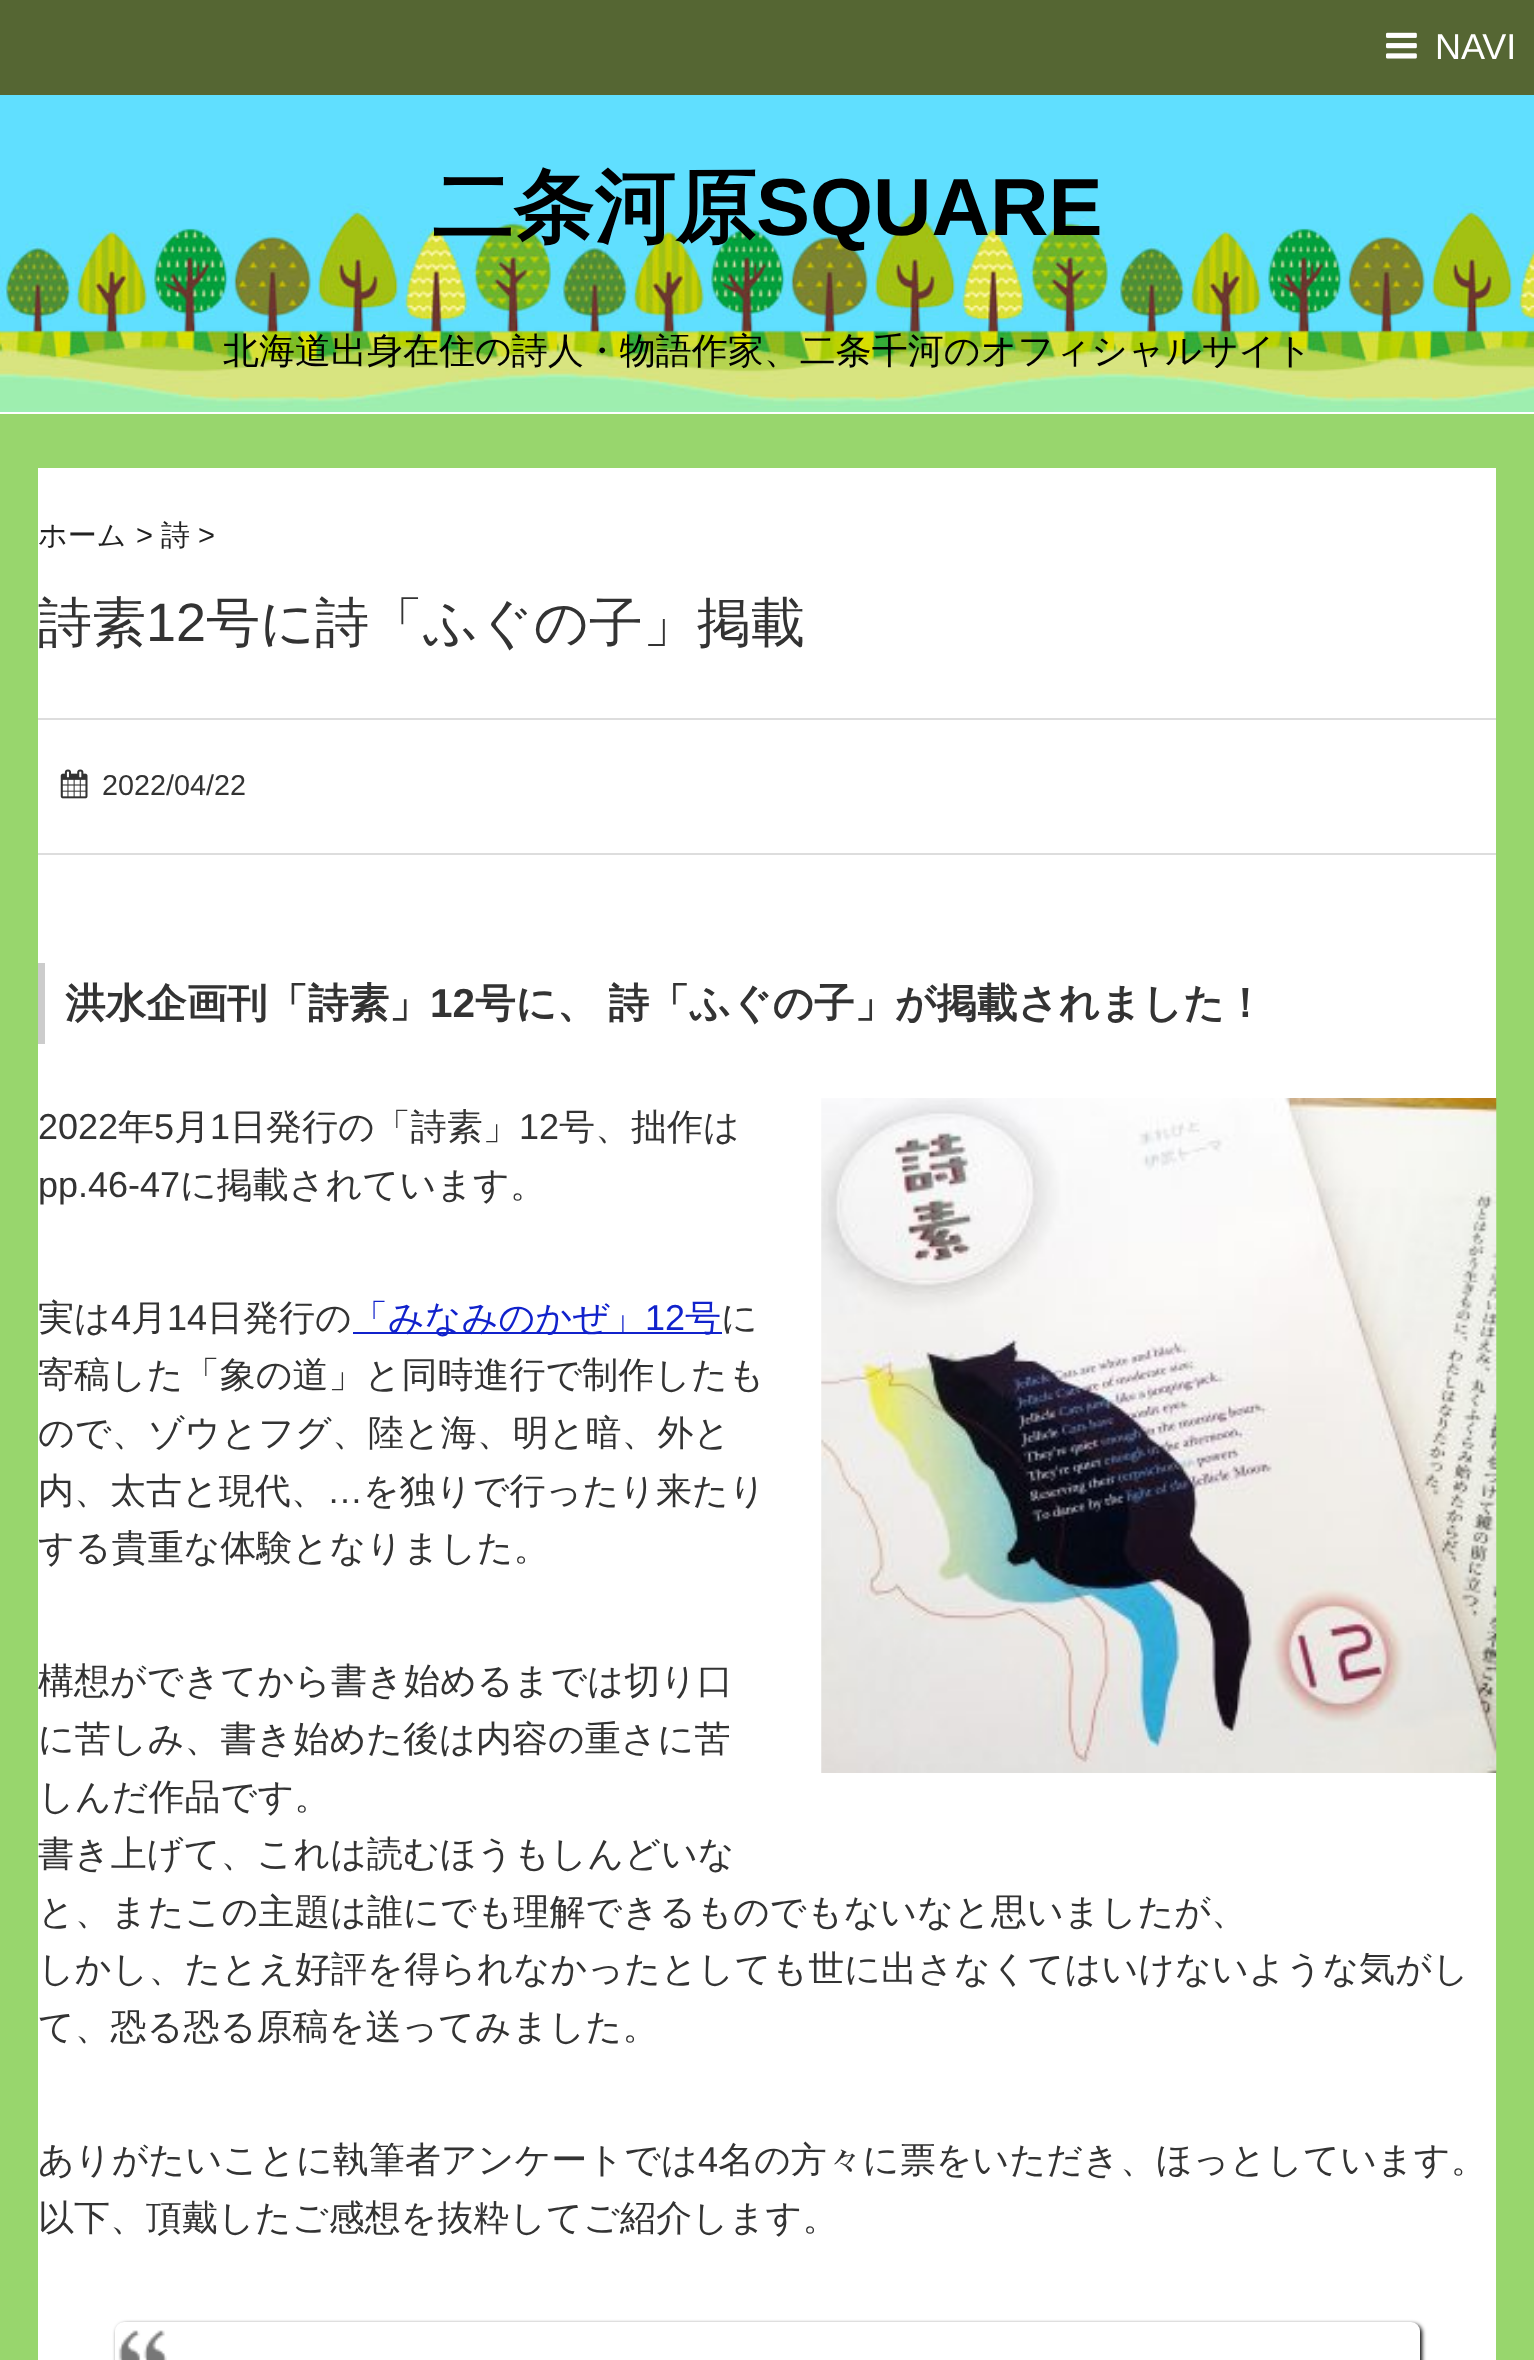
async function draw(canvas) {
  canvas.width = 1534
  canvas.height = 2360
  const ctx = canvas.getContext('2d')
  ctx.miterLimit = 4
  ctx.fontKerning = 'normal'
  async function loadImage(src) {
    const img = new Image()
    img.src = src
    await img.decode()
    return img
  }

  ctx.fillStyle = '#98d66d'
  ctx.fillRect(0, 0, 1534, 2360)
  ctx.drawImage(await loadImage('image0.png'), 0, 95, 1534, 317)
  ctx.fillStyle = '#fff'
  ctx.fillRect(0, 412, 1534, 2)
  ctx.fillStyle = '#563'
  ctx.fillRect(0, 0, 1534, 95)
  ctx.drawImage(await loadImage('image1.png'), 1386, 32, 31, 27)
  ctx.font = '36px Liberation Sans'
  ctx.fillStyle = '#fff'
  ctx.fillText('NAVI', 1435, 59)
  ctx.font = 'bold 81px WenQuanYi Zen Hei'
  ctx.fillStyle = '#000'
  ctx.fillText('二条河原', 432, 235)
  ctx.font = 'bold 81px Liberation Sans'
  ctx.fillText('SQUARE', 756, 235)
  ctx.font = '500 36px WenQuanYi Zen Hei'
  ctx.fillText('北海道出身在住の詩人・物語作家、二条千河のオフィシャルサイト', 223, 363)
  ctx.fillStyle = '#fff'
  ctx.fillRect(38, 468, 1458, 1892)
  ctx.font = '500 29px WenQuanYi Zen Hei'
  ctx.fillStyle = '#222'
  ctx.fillText('ホーム', 38, 545)
  ctx.font = '29px Liberation Sans'
  ctx.fillText('>', 136, 545)
  ctx.font = '500 29px WenQuanYi Zen Hei'
  ctx.fillText('詩', 161, 545)
  ctx.font = '29px Liberation Sans'
  ctx.fillText('>', 198, 545)
  ctx.font = '500 54px WenQuanYi Zen Hei'
  ctx.fillStyle = '#333'
  ctx.fillText('詩素', 38, 641)
  ctx.font = '54px Liberation Sans'
  ctx.fillText('12', 146, 641)
  ctx.font = '500 54px WenQuanYi Zen Hei'
  ctx.fillText('号に詩「ふぐの子」掲載', 206, 641)
  ctx.fillStyle = '#ddd'
  ctx.fillRect(38, 718, 1458, 2)
  ctx.fillRect(38, 853, 1458, 2)
  ctx.drawImage(await loadImage('image2.png'), 60, 769, 28, 30)
  ctx.font = '28.75px Liberation Sans'
  ctx.fillStyle = '#333'
  ctx.fillText('2022/04/22', 102, 795)
  ctx.fillStyle = '#ccc'
  ctx.fillRect(38, 963, 7, 81)
  ctx.font = 'bold 40.5px WenQuanYi Zen Hei'
  ctx.fillStyle = '#333'
  ctx.fillText('洪水企画刊「詩素」', 65, 1017)
  ctx.font = 'bold 40.5px Liberation Sans'
  ctx.fillText('12', 430, 1017)
  ctx.wordSpacing = '-1px'
  ctx.font = 'bold 40.5px WenQuanYi Zen Hei'
  ctx.fillText('号に、 詩「ふぐの子」が掲載されました！', 475, 1017)
  ctx.wordSpacing = '0px'
  ctx.font = '36px Liberation Sans'
  ctx.fillText('2022', 38, 1139)
  ctx.font = '500 36px WenQuanYi Zen Hei'
  ctx.fillText('年', 118, 1139)
  ctx.font = '36px Liberation Sans'
  ctx.fillText('5', 154, 1139)
  ctx.font = '500 36px WenQuanYi Zen Hei'
  ctx.fillText('月', 174, 1139)
  ctx.font = '36px Liberation Sans'
  ctx.fillText('1', 210, 1139)
  ctx.font = '500 36px WenQuanYi Zen Hei'
  ctx.fillText('日発行の「詩素」', 230, 1139)
  ctx.font = '36px Liberation Sans'
  ctx.fillText('12', 519, 1139)
  ctx.font = '500 36px WenQuanYi Zen Hei'
  ctx.fillText('号、拙作は', 559, 1139)
  ctx.drawImage(await loadImage('image3.png'), 821, 1098, 676, 675)
  ctx.font = '36px Liberation Sans'
  ctx.fillText('pp.46-47', 38, 1197)
  ctx.font = '500 36px WenQuanYi Zen Hei'
  ctx.fillText('に掲載されています。', 180, 1197)
  ctx.fillText('実は', 38, 1330)
  ctx.font = '36px Liberation Sans'
  ctx.fillText('4', 111, 1330)
  ctx.font = '500 36px WenQuanYi Zen Hei'
  ctx.fillText('月', 131, 1330)
  ctx.font = '36px Liberation Sans'
  ctx.fillText('14', 167, 1330)
  ctx.font = '500 36px WenQuanYi Zen Hei'
  ctx.fillText('日発行の', 207, 1330)
  ctx.fillStyle = '#12c'
  ctx.fillRect(353, 1332, 369, 2)
  ctx.fillText('「みなみのかぜ」', 352, 1330)
  ctx.font = '36px Liberation Sans'
  ctx.fillText('12', 645, 1330)
  ctx.font = '500 36px WenQuanYi Zen Hei'
  ctx.fillText('号', 685, 1330)
  ctx.fillStyle = '#333'
  ctx.fillText('に', 721, 1330)
  ctx.fillText('寄稿した「象の道」と同時進行で制作したも', 38, 1387)
  ctx.fillText('ので、ゾウとフグ、陸と海、明と暗、外と', 38, 1445)
  ctx.fillText('内、太古と現代、', 38, 1503)
  ctx.font = '36px Liberation Sans'
  ctx.fillText('…', 327, 1503)
  ctx.font = '500 36px WenQuanYi Zen Hei'
  ctx.fillText('を独りで行ったり来たり', 363, 1503)
  ctx.fillText('する貴重な体験となりました。', 38, 1560)
  ctx.fillText('構想ができてから書き始めるまでは切り口', 38, 1693)
  ctx.fillText('に苦しみ、書き始めた後は内容の重さに苦', 38, 1751)
  ctx.fillText('しんだ作品です。', 38, 1809)
  ctx.fillText('書き上げて、これは読むほうもしんどいな', 38, 1866)
  ctx.fillText('と、またこの主題は誰にでも理解できるものでもないなと思いましたが、', 38, 1924)
  ctx.fillText('しかし、たとえ好評を得られなかったとしても世に出さなくてはいけないような気がし', 38, 1981)
  ctx.fillText('て、恐る恐る原稿を送ってみました。', 38, 2039)
  ctx.fillText('ありがたいことに執筆者アンケートでは', 38, 2172)
  ctx.font = '36px Liberation Sans'
  ctx.fillText('4', 698, 2172)
  ctx.font = '500 36px WenQuanYi Zen Hei'
  ctx.fillText('名の方々に票をいただき、ほっとしています。', 718, 2172)
  ctx.fillText('以下、頂戴したご感想を抜粋してご紹介します。', 38, 2230)
  ctx.fillStyle = '#000'
  ctx.filter = 'blur(2px)'
  ctx.beginPath()
  ctx.roundRect(117, 2324, 1305, 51, 9)
  ctx.fill()
  ctx.filter = 'none'
  ctx.fillStyle = '#fff'
  ctx.beginPath()
  ctx.roundRect(115, 2322, 1305, 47, 9)
  ctx.fill()
  ctx.drawImage(await loadImage('image4.png'), 118, 2330, 49, 30)
}

draw(document.querySelector('canvas'))
